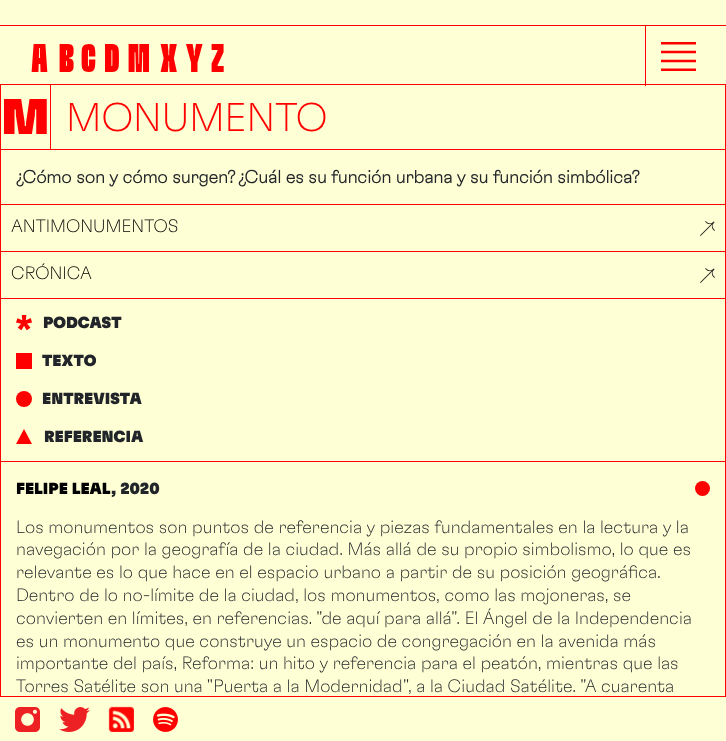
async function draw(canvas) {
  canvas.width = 726
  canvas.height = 741
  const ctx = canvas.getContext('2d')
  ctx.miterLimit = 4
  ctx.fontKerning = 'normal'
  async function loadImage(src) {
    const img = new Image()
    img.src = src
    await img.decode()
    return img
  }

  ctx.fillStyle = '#ffffd5'
  ctx.fillRect(0, 0, 726, 741)
  ctx.fillStyle = '#f00'
  ctx.fillRect(0, 25, 726, 1)
  ctx.fillRect(0, 84, 726, 1)
  ctx.font = '40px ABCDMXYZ'
  ctx.fillText('A', 30, 72)
  ctx.fillText('B', 58, 72)
  ctx.fillText('C', 80, 72)
  ctx.fillText('D', 105, 72)
  ctx.fillText('M', 127, 72)
  ctx.fillText('X', 159, 72)
  ctx.fillText('Y', 186, 72)
  ctx.fillText('Z', 210, 72)
  ctx.fillRect(645, 26, 1, 60)
  ctx.drawImage(await loadImage('image0.png'), 661, 42, 35, 29)
  ctx.fillRect(725, 85, 1, 611)
  ctx.fillRect(0, 85, 1, 611)
  ctx.fillRect(1, 149, 724, 1)
  ctx.fillRect(50, 85, 1, 64)
  ctx.font = '900 50px "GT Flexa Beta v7"'
  ctx.fillText('M', 1, 134)
  ctx.font = '100 40px "GT Flexa Beta v7"'
  ctx.fillText('MONUMENTO', 66, 131)
  ctx.fillRect(1, 204, 724, 1)
  ctx.font = 'bold 18px "GT Flexa Beta v7"'
  ctx.fillStyle = '#212529'
  ctx.fillText('¿Cómo son y cómo surgen? ¿Cuál es su función urbana y su función simbólica?', 16, 183)
  ctx.fillStyle = '#f00'
  ctx.fillRect(1, 251, 724, 1)
  ctx.font = '100 18px "GT Flexa Beta v7"'
  ctx.fillStyle = '#000'
  ctx.fillText('ANTIMONUMENTOS', 11, 232)
  ctx.drawImage(await loadImage('image1.png'), 700, 221, 15, 15)
  ctx.fillStyle = '#f00'
  ctx.fillRect(1, 298, 724, 1)
  ctx.fillStyle = '#000'
  ctx.fillText('CRÓNICA', 11, 279)
  ctx.drawImage(await loadImage('image1.png'), 700, 268, 15, 15)
  ctx.fillStyle = '#f00'
  ctx.fillRect(1, 461, 724, 1)
  ctx.drawImage(await loadImage('image2.png'), 16, 315, 16, 16)
  ctx.font = '900 16px "GT Flexa Beta v7"'
  ctx.fillStyle = '#212529'
  ctx.fillText('PODCAST', 43, 328)
  ctx.fillStyle = '#f00'
  ctx.fillRect(16, 353, 16, 16)
  ctx.fillStyle = '#212529'
  ctx.fillText('TEXTO', 42, 366)
  ctx.fillStyle = '#f00'
  ctx.beginPath()
  ctx.arc(24, 399, 8, 0, 2 * Math.PI)
  ctx.fill()
  ctx.fillStyle = '#212529'
  ctx.fillText('ENTREVISTA', 42, 404)
  ctx.fillStyle = '#f00'
  ctx.beginPath()
  ctx.moveTo(24, 429)
  ctx.lineTo(16, 444)
  ctx.lineTo(32, 444)
  ctx.closePath()
  ctx.fill()
  ctx.fillStyle = '#212529'
  ctx.fillText('REFERENCIA', 44, 442)
  ctx.fillStyle = '#000'
  ctx.fillText('FELIPE LEAL', 16, 494)
  ctx.fillStyle = '#212529'
  ctx.fillText(', 2020', 111, 494)
  ctx.fillStyle = '#f00'
  ctx.beginPath()
  ctx.arc(702.5, 488.5, 7.5, 0, 2 * Math.PI)
  ctx.fill()
  ctx.font = '100 18px "GT Flexa Beta v7"'
  ctx.fillStyle = '#212529'
  ctx.fillText('Los monumentos son puntos de referencia y piezas fundamentales en la lectura y la', 16, 533)
  ctx.fillText('navegación por la geografía de la ciudad. Más allá de su propio simbolismo, lo que es', 16, 555)
  ctx.fillText('relevante es lo que hace en el espacio urbano a partir de su posición geográfica.', 16, 578)
  ctx.fillText('Dentro de lo no-límite de la ciudad, los monumentos, como las mojoneras, se', 16, 601)
  ctx.fillText('convierten en límites, en referencias. "de aquí para allá". El Ángel de la Independencia', 16, 624)
  ctx.fillText('es un monumento que construye un espacio de congregación en la avenida más', 16, 647)
  ctx.fillText('importante del país, Reforma: un hito y referencia para el peatón, mientras que las', 16, 669)
  ctx.fillText('Torres Satélite son una "Puerta a la Modernidad", a la Ciudad Satélite. "A cuarenta', 16, 692)
  ctx.fillStyle = '#f00'
  ctx.fillRect(0, 696, 726, 1)
  ctx.drawImage(await loadImage('image3.png'), 15, 707, 25, 25)
  ctx.drawImage(await loadImage('image4.png'), 59, 707, 31, 25)
  ctx.drawImage(await loadImage('image5.png'), 108, 706, 26, 26)
  ctx.drawImage(await loadImage('image6.png'), 153, 707, 25, 25)
}

draw(document.querySelector('canvas'))
